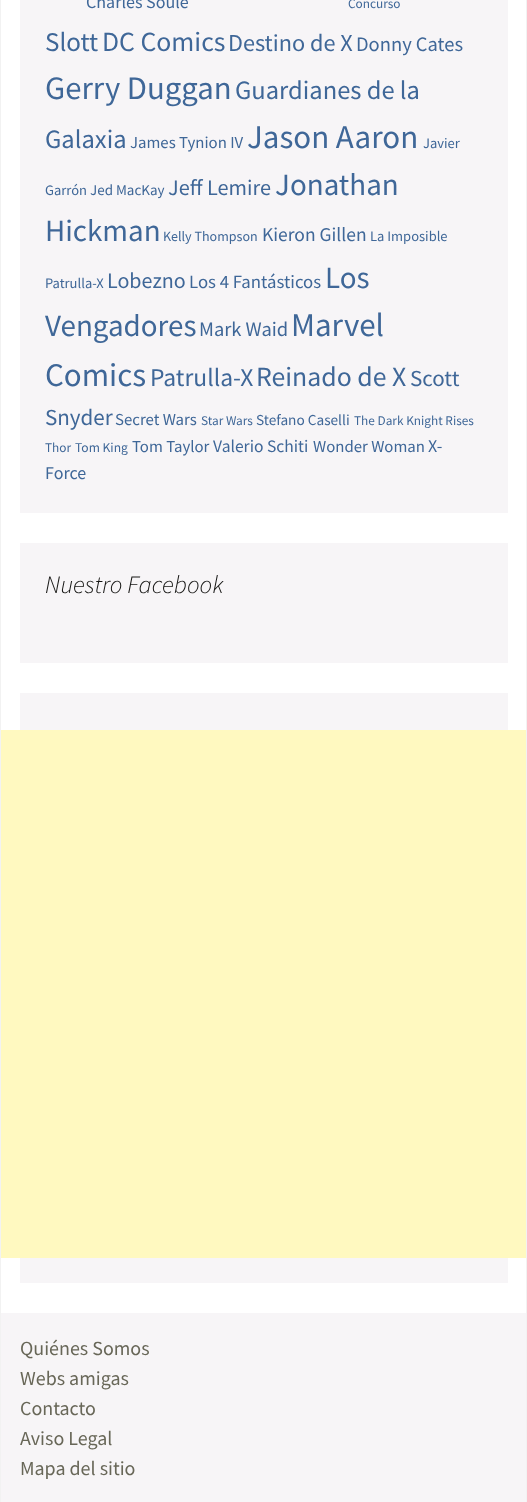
async function draw(canvas) {
  canvas.width = 527
  canvas.height = 1502
  const ctx = canvas.getContext('2d')
  ctx.miterLimit = 4
  ctx.fontKerning = 'normal'

  ctx.fillStyle = '#fff'
  ctx.fillRect(0, 0, 527, 1502)
  ctx.fillStyle = '#f2f2f2'
  ctx.fillRect(526, 0, 1, 1502)
  ctx.fillRect(0, 0, 1, 1502)
  ctx.fillStyle = '#f7f5f7'
  ctx.fillRect(20, 0, 488, 513)
  ctx.font = '18px Source Sans Pro'
  ctx.fillStyle = '#3f6798'
  ctx.fillText('Charles Soule', 86, 8)
  ctx.font = '13.25px Source Sans Pro'
  ctx.fillText('Concurso', 348, 8)
  ctx.font = '27px Source Sans Pro'
  ctx.fillText('Slott', 45, 51)
  ctx.font = '27.75px Source Sans Pro'
  ctx.fillText('DC Comics', 102, 51)
  ctx.font = '24.25px Source Sans Pro'
  ctx.fillText('Destino de X', 228, 51)
  ctx.font = '20.5px Source Sans Pro'
  ctx.fillText('Donny Cates', 356, 51)
  ctx.font = '32.75px Source Sans Pro'
  ctx.fillText('Gerry Duggan', 45, 99)
  ctx.font = '26.5px Source Sans Pro'
  ctx.fillText('Guardianes de la', 235, 99)
  ctx.fillText('Galaxia', 45, 148)
  ctx.font = '16.75px Source Sans Pro'
  ctx.fillText('James Tynion IV', 130, 148)
  ctx.font = '33px Source Sans Pro'
  ctx.fillText('Jason Aaron', 247, 148)
  ctx.font = '14.5px Source Sans Pro'
  ctx.fillText('Javier', 423, 148)
  ctx.fillText('Garrón', 45, 195)
  ctx.font = '15px Source Sans Pro'
  ctx.fillText('Jed MacKay', 90, 195)
  ctx.font = '22.25px Source Sans Pro'
  ctx.fillText('Jeff Lemire', 168, 195)
  ctx.font = '31px Source Sans Pro'
  ctx.fillText('Jonathan', 275, 195)
  ctx.fillText('Hickman', 45, 241)
  ctx.font = '14px Source Sans Pro'
  ctx.fillText('Kelly Thompson', 163, 241)
  ctx.font = '19.5px Source Sans Pro'
  ctx.fillText('Kieron Gillen', 262, 241)
  ctx.font = '14.5px Source Sans Pro'
  ctx.fillText('La Imposible', 370, 241)
  ctx.fillText('Patrulla-X', 45, 288)
  ctx.font = '22px Source Sans Pro'
  ctx.fillText('Lobezno', 107, 288)
  ctx.font = '18.75px Source Sans Pro'
  ctx.fillText('Los 4 Fantásticos', 189, 288)
  ctx.font = '31px Source Sans Pro'
  ctx.fillText('Los', 325, 288)
  ctx.fillText('Vengadores', 45, 336)
  ctx.font = '20.5px Source Sans Pro'
  ctx.fillText('Mark Waid', 199, 336)
  ctx.font = '33px Source Sans Pro'
  ctx.fillText('Marvel', 291, 336)
  ctx.fillText('Comics', 45, 386)
  ctx.font = '25.5px Source Sans Pro'
  ctx.fillText('Patrulla-X', 150, 386)
  ctx.font = '27.75px Source Sans Pro'
  ctx.fillText('Reinado de X', 256, 386)
  ctx.font = '23px Source Sans Pro'
  ctx.fillText('Scott', 410, 386)
  ctx.fillText('Snyder', 45, 425)
  ctx.font = '16.75px Source Sans Pro'
  ctx.fillText('Secret Wars', 115, 425)
  ctx.font = '13.25px Source Sans Pro'
  ctx.fillText('Star Wars', 201, 425)
  ctx.font = '15.25px Source Sans Pro'
  ctx.fillText('Stefano Caselli', 256, 425)
  ctx.font = '13.25px Source Sans Pro'
  ctx.fillText('The Dark Knight Rises', 354, 425)
  ctx.fillText('Thor', 45, 452)
  ctx.font = '13.5px Source Sans Pro'
  ctx.fillText('Tom King', 75, 452)
  ctx.font = '16.75px Source Sans Pro'
  ctx.fillText('Tom Taylor', 132, 452)
  ctx.font = '17.5px Source Sans Pro'
  ctx.fillText('Valerio Schiti', 213, 452)
  ctx.font = '16.75px Source Sans Pro'
  ctx.fillText('Wonder Woman', 313, 452)
  ctx.font = '18px Source Sans Pro'
  ctx.fillText('X-', 428, 452)
  ctx.fillText('Force', 45, 479)
  ctx.fillStyle = '#f7f5f7'
  ctx.fillRect(20, 543, 488, 120)
  ctx.font = 'italic 300 25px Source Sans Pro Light'
  ctx.fillStyle = '#141412'
  ctx.fillText('Nuestro Facebook', 45, 593)
  ctx.fillStyle = '#f7f5f7'
  ctx.fillRect(20, 693, 488, 590)
  ctx.fillStyle = '#fff9c0'
  ctx.fillRect(1, 730, 525, 528)
  ctx.fillStyle = '#f7f5f7'
  ctx.fillRect(1, 1313, 525, 189)
  ctx.font = '20px Source Sans Pro'
  ctx.fillStyle = '#686758'
  ctx.fillText('Quiénes Somos', 20, 1355)
  ctx.fillText('Webs amigas', 20, 1385)
  ctx.fillText('Contacto', 20, 1415)
  ctx.fillText('Aviso Legal', 20, 1445)
  ctx.fillText('Mapa del sitio', 20, 1475)
}

draw(document.querySelector('canvas'))
